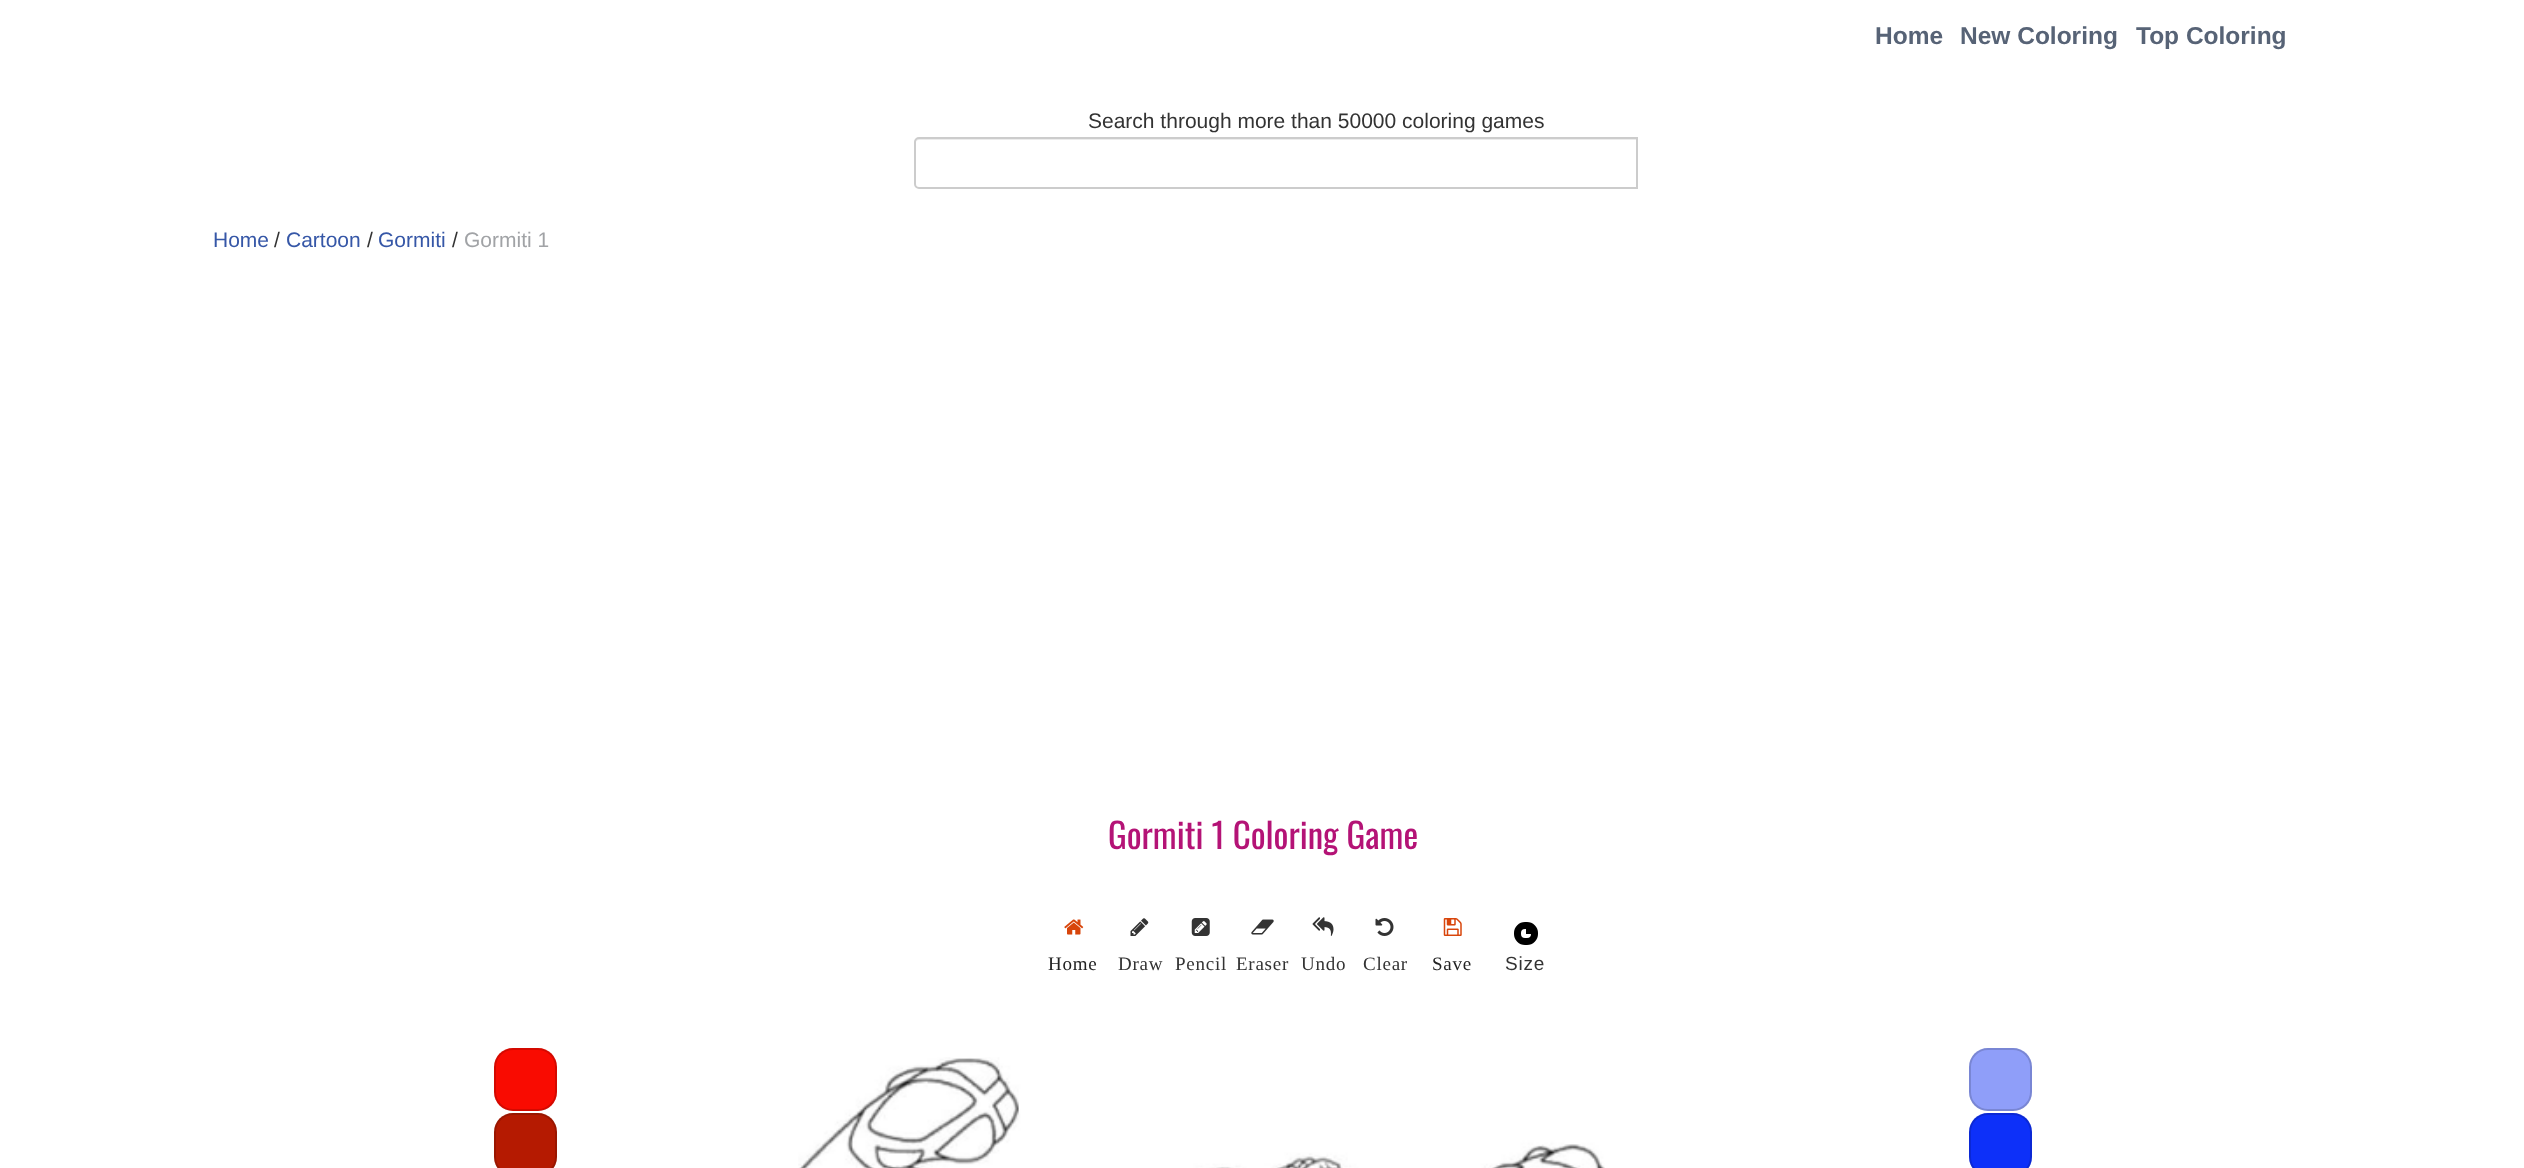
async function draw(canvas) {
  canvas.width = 2524
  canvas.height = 1168
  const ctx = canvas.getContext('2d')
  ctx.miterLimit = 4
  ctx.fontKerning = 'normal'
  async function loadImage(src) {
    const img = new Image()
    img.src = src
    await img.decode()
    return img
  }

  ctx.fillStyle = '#fff'
  ctx.fillRect(0, 0, 2524, 1168)
  ctx.font = 'bold 24.5px Liberation Sans'
  ctx.fillStyle = '#576376'
  ctx.fillText('Home', 1875, 44)
  ctx.fillText('New Coloring', 1960, 44)
  ctx.fillText('Top Coloring', 2136, 44)
  ctx.font = '21px Liberation Sans'
  ctx.fillStyle = '#333'
  ctx.fillText('Search through more than 50000 coloring games', 1088, 128)
  ctx.fillStyle = '#ececec'
  ctx.beginPath()
  ctx.moveTo(919, 140)
  ctx.lineTo(1636, 140)
  ctx.lineTo(1636, 138)
  ctx.lineTo(919, 138)
  ctx.bezierCurveTo(915, 138, 915, 141, 915, 144)
  ctx.bezierCurveTo(915, 142, 917, 140, 919, 140)
  ctx.closePath()
  ctx.fill()
  ctx.beginPath()
  ctx.roundRect(915, 138, 722, 50, [4, 0, 0, 4])
  ctx.strokeStyle = '#ccc'
  ctx.lineWidth = 2
  ctx.stroke()
  ctx.fillStyle = '#3657a7'
  ctx.fillText('Home', 213, 247)
  ctx.fillStyle = '#333'
  ctx.fillText('/', 274, 247)
  ctx.fillStyle = '#3657a7'
  ctx.fillText('Cartoon', 286, 247)
  ctx.fillStyle = '#333'
  ctx.fillText('/', 367, 247)
  ctx.fillStyle = '#3657a7'
  ctx.fillText('Gormiti', 378, 247)
  ctx.fillStyle = '#333'
  ctx.fillText('/', 452, 247)
  ctx.fillStyle = '#a1a3a6'
  ctx.fillText('Gormiti 1', 464, 247)
  ctx.font = '35px Oswald'
  ctx.fillStyle = '#b41376'
  ctx.fillText('Gormiti 1 Coloring Game', 1108, 849)
  ctx.drawImage(await loadImage('image0.png'), 1064, 919, 20, 16)
  ctx.letterSpacing = '0.75px'
  ctx.font = '19px Liberation Serif'
  ctx.fillStyle = '#222'
  ctx.fillText('Home', 1048, 970)
  ctx.drawImage(await loadImage('image1.png'), 1130, 918, 19, 18)
  ctx.fillStyle = '#333'
  ctx.fillText('Draw', 1118, 970)
  ctx.drawImage(await loadImage('image2.png'), 1191, 918, 19, 18)
  ctx.fillText('Pencil', 1175, 970)
  ctx.drawImage(await loadImage('image3.png'), 1251, 919, 23, 16)
  ctx.fillText('Eraser', 1236, 970)
  ctx.drawImage(await loadImage('image4.png'), 1312, 917, 22, 19)
  ctx.fillText('Undo', 1301, 970)
  ctx.drawImage(await loadImage('image5.png'), 1375, 918, 19, 18)
  ctx.fillText('Clear', 1363, 970)
  ctx.drawImage(await loadImage('image6.png'), 1443, 918, 19, 18)
  ctx.fillStyle = '#222'
  ctx.fillText('Save', 1432, 970)
  ctx.beginPath()
  ctx.roundRect(1517.5, 925.5, 17, 16, 7.5)
  ctx.strokeStyle = '#000'
  ctx.lineWidth = 7
  ctx.stroke()
  ctx.fillStyle = '#000'
  ctx.fillRect(1526, 929, 5, 5)
  ctx.font = '19px Liberation Sans'
  ctx.fillStyle = '#333'
  ctx.fillText('Size', 1505, 970)
  ctx.fillStyle = '#f90b01'
  ctx.beginPath()
  ctx.roundRect(494, 1048, 63, 63, 19)
  ctx.fill()
  ctx.beginPath()
  ctx.roundRect(495, 1049, 61, 61, 18)
  ctx.strokeStyle = '#00000026'
  ctx.lineWidth = 2
  ctx.stroke()
  ctx.fillStyle = '#b51a01'
  ctx.beginPath()
  ctx.roundRect(494, 1113, 63, 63, 19)
  ctx.fill()
  ctx.beginPath()
  ctx.roundRect(495, 1114, 61, 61, 18)
  ctx.stroke()
  ctx.drawImage(await loadImage('image7.png'), 798, 1057, 807, 111)
  ctx.fillStyle = '#8f9ef9'
  ctx.beginPath()
  ctx.roundRect(1969, 1048, 63, 63, 19)
  ctx.fill()
  ctx.beginPath()
  ctx.roundRect(1970, 1049, 61, 61, 18)
  ctx.stroke()
  ctx.fillStyle = '#0d30f9'
  ctx.beginPath()
  ctx.roundRect(1969, 1113, 63, 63, 19)
  ctx.fill()
  ctx.beginPath()
  ctx.roundRect(1970, 1114, 61, 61, 18)
  ctx.stroke()
}

draw(document.querySelector('canvas'))
